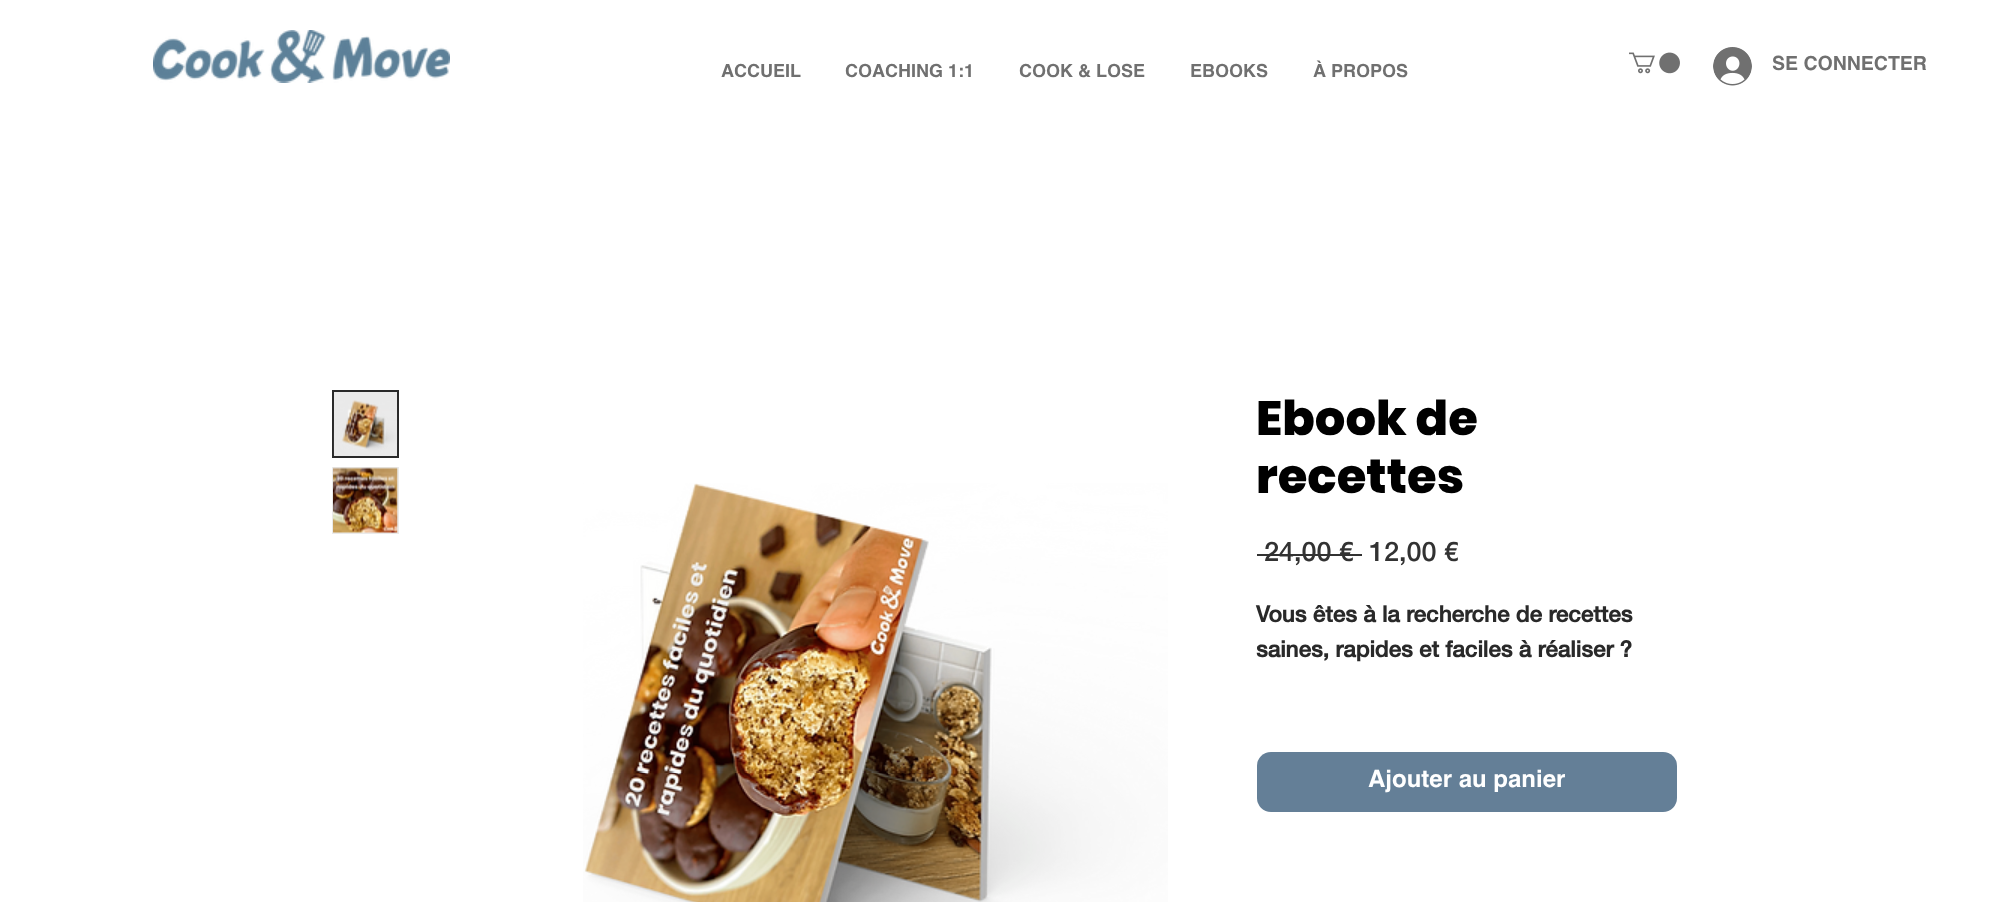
async function draw(canvas) {
  canvas.width = 2002
  canvas.height = 902
  const ctx = canvas.getContext('2d')
  ctx.miterLimit = 4
  ctx.fontKerning = 'normal'
  async function loadImage(src) {
    const img = new Image()
    img.src = src
    await img.decode()
    return img
  }

  ctx.fillStyle = '#fff'
  ctx.fillRect(0, 0, 2002, 902)
  ctx.drawImage(await loadImage('image0.png'), 153, 30, 297, 53)
  ctx.font = 'bold 18px Helvetica'
  ctx.fillStyle = '#707070'
  ctx.fillText('ACCUEIL', 721, 77)
  ctx.fillText('COACHING 1:1', 845, 77)
  ctx.fillText('COOK & LOSE', 1019, 77)
  ctx.fillText('EBOOKS', 1190, 77)
  ctx.fillText('À PROPOS', 1313, 77)
  ctx.drawImage(await loadImage('image1.png'), 1629, 52, 51, 22)
  ctx.drawImage(await loadImage('image2.png'), 1713, 47, 39, 39)
  ctx.font = 'bold 19.5px Helvetica'
  ctx.fillText('SE CONNECTER', 1772, 70)
  ctx.fillStyle = '#eaeaea'
  ctx.beginPath()
  ctx.rect(333, 391, 65, 66)
  ctx.fill()
  ctx.strokeStyle = '#292929'
  ctx.lineWidth = 2
  ctx.stroke()
  ctx.drawImage(await loadImage('image3.png'), 333, 400, 65, 56)
  ctx.fillRect(332, 467, 67, 67)
  ctx.drawImage(await loadImage('image4.png'), 333, 467, 65, 66)
  ctx.drawImage(await loadImage('image5.png'), 583, 483, 585, 419)
  ctx.font = '800 48px Poppins'
  ctx.fillStyle = '#000'
  ctx.fillText('Ebook de', 1256, 435)
  ctx.fillText('recettes', 1256, 493)
  ctx.font = '500 27px Helvetica Neue'
  ctx.fillStyle = '#323232'
  ctx.fillText('24,00 €', 1264, 561)
  ctx.fillRect(1257, 554, 105, 2)
  ctx.fillText('12,00 €', 1369, 561)
  ctx.font = 'bold 22.5px Helvetica Neue'
  ctx.fillStyle = '#292929'
  ctx.fillText('Vous êtes à la recherche de recettes', 1256, 622)
  ctx.fillText('saines, rapides et faciles à réaliser ?', 1256, 657)
  ctx.fillStyle = '#647f97'
  ctx.beginPath()
  ctx.roundRect(1257, 752, 420, 60, 14)
  ctx.fill()
  ctx.font = 'bold 24px Helvetica'
  ctx.fillStyle = '#fff'
  ctx.fillText('Ajouter au panier', 1368, 787)
}

draw(document.querySelector('canvas'))
